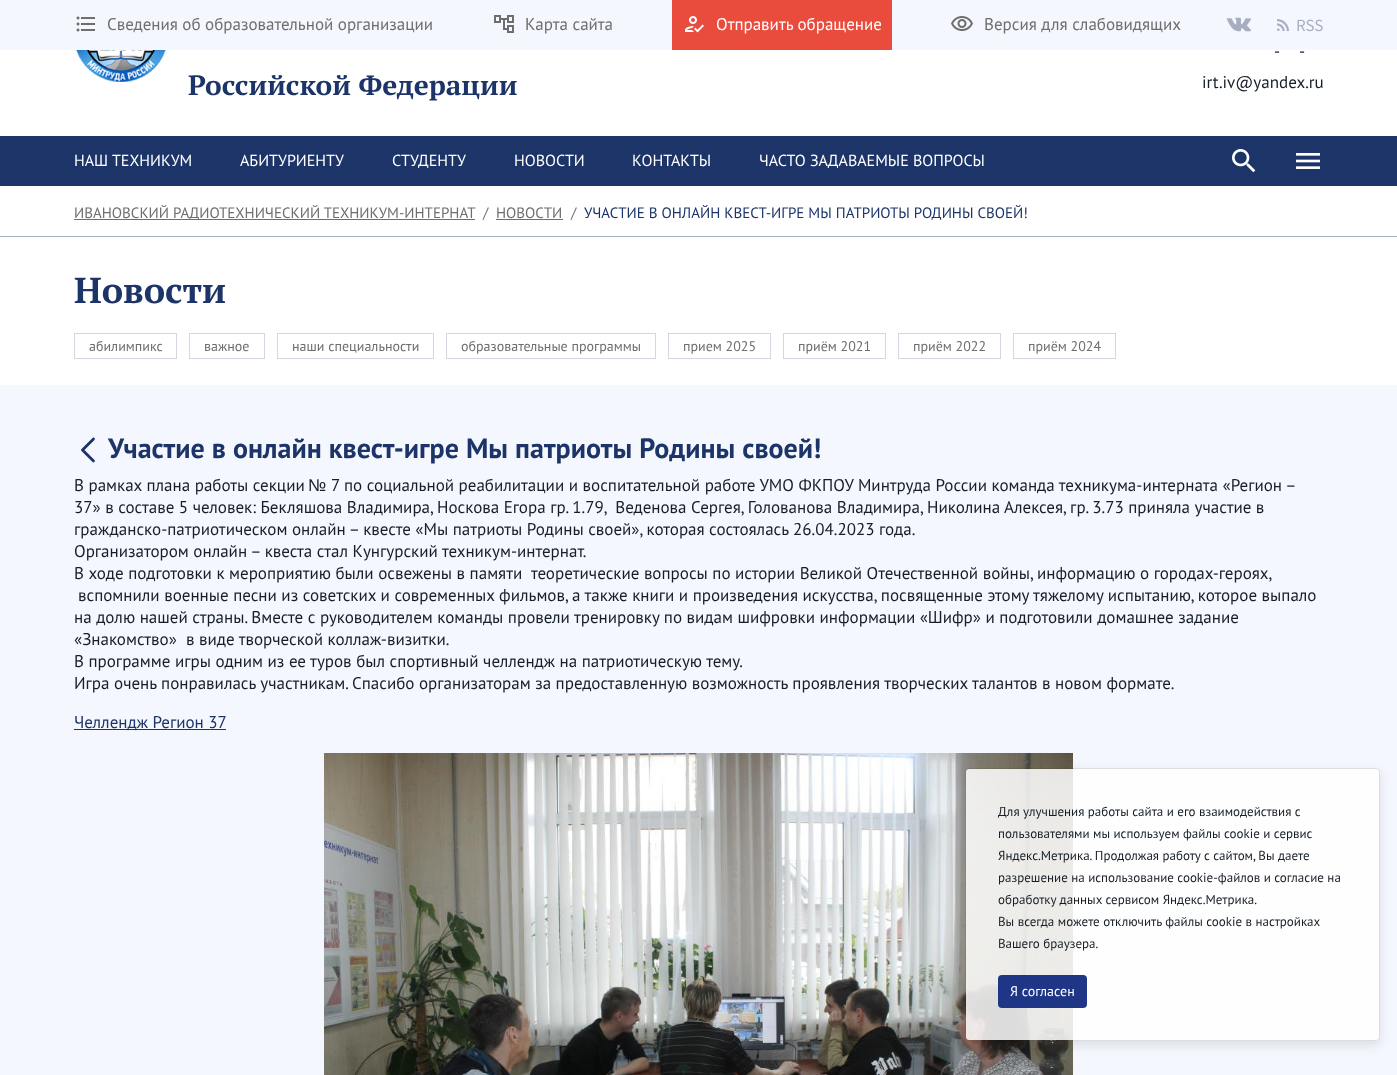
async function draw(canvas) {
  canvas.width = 1397
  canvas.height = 1075
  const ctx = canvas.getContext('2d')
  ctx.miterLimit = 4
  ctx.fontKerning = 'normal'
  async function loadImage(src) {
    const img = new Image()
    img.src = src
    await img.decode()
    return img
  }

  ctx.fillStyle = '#fff'
  ctx.fillRect(0, 0, 1397, 1075)
  ctx.fillStyle = '#f4f7fd'
  ctx.fillRect(0, 0, 1397, 50)
  ctx.drawImage(await loadImage('image0.png'), 76, 16, 19, 16)
  ctx.font = '17px PT Sans'
  ctx.fillStyle = '#706d6d'
  ctx.fillText('Сведения об образовательной организации', 107, 30)
  ctx.drawImage(await loadImage('image1.png'), 494, 15, 20, 18)
  ctx.fillText('Карта сайта', 525, 30)
  ctx.fillStyle = '#e94b3d'
  ctx.fillRect(672, 0, 220, 50)
  ctx.drawImage(await loadImage('image2.png'), 685, 16, 19, 17)
  ctx.fillStyle = '#fff'
  ctx.fillText('Отправить обращение', 716, 30)
  ctx.drawImage(await loadImage('image3.png'), 951, 16, 22, 15)
  ctx.fillStyle = '#706d6d'
  ctx.fillText('Версия для слабовидящих', 984, 30)
  ctx.drawImage(await loadImage('image4.png'), 1226, 17, 25, 15)
  ctx.drawImage(await loadImage('image5.png'), 1277, 19, 12, 12)
  ctx.drawImage(await loadImage('image6.png'), 1297, 19, 26, 13)
  ctx.drawImage(await loadImage('image7.png'), 76, 50, 90, 32)
  ctx.font = 'bold 28px PT Serif'
  ctx.fillStyle = '#1c3467'
  ctx.fillText('Российской Федерации', 188, 95)
  ctx.font = '17px PT Sans'
  ctx.fillStyle = '#161e26'
  ctx.fillText('-', 1274, 57)
  ctx.fillText('-', 1299, 57)
  ctx.fillText('irt.iv@yandex.ru', 1202, 88)
  ctx.fillStyle = '#1c3467'
  ctx.fillRect(0, 136, 1397, 50)
  ctx.font = '16px PT Sans'
  ctx.fillStyle = '#fff'
  ctx.fillText('НАШ ТЕХНИКУМ', 74, 166)
  ctx.fillText('АБИТУРИЕНТУ', 240, 166)
  ctx.fillText('СТУДЕНТУ', 392, 166)
  ctx.fillText('НОВОСТИ', 514, 166)
  ctx.fillText('КОНТАКТЫ', 632, 166)
  ctx.fillText('ЧАСТО ЗАДАВАЕМЫЕ ВОПРОСЫ', 759, 166)
  ctx.drawImage(await loadImage('image8.png'), 1232, 149, 24, 24)
  ctx.drawImage(await loadImage('image9.png'), 1296, 153, 24, 16)
  ctx.fillStyle = '#a6aebf'
  ctx.fillRect(0, 236, 1397, 1)
  ctx.fillStyle = '#706d6d'
  ctx.fillRect(74, 219, 401, 1)
  ctx.font = '15px PT Sans'
  ctx.fillText('ИВАНОВСКИЙ РАДИОТЕХНИЧЕСКИЙ ТЕХНИКУМ-ИНТЕРНАТ', 74, 218)
  ctx.fillStyle = '#6c757d'
  ctx.fillText('/', 483, 218)
  ctx.fillStyle = '#706d6d'
  ctx.fillText('НОВОСТИ', 496, 218)
  ctx.fillRect(496, 219, 67, 1)
  ctx.fillStyle = '#6c757d'
  ctx.fillText('/', 571, 218)
  ctx.fillStyle = '#1c3467'
  ctx.fillText('УЧАСТИЕ В ОНЛАЙН КВЕСТ-ИГРЕ МЫ ПАТРИОТЫ РОДИНЫ СВОЕЙ!', 584, 218)
  ctx.font = 'bold 36px PT Serif'
  ctx.fillText('Новости', 74, 303)
  ctx.strokeStyle = '#d3d7df'
  ctx.strokeRect(74.5, 333.5, 102, 25)
  ctx.font = '14px PT Sans'
  ctx.fillStyle = '#706d6d'
  ctx.fillText('абилимпикс', 89, 351)
  ctx.strokeRect(189.5, 333.5, 75, 25)
  ctx.fillText('важное', 204, 351)
  ctx.strokeRect(277.5, 333.5, 156, 25)
  ctx.fillText('наши специальности', 292, 351)
  ctx.strokeRect(446.5, 333.5, 209, 25)
  ctx.fillText('образовательные программы', 461, 351)
  ctx.strokeRect(668.5, 333.5, 102, 25)
  ctx.fillText('прием 2025', 683, 351)
  ctx.strokeRect(783.5, 333.5, 102, 25)
  ctx.fillText('приём 2021', 798, 351)
  ctx.strokeRect(898.5, 333.5, 102, 25)
  ctx.fillText('приём 2022', 913, 351)
  ctx.strokeRect(1013.5, 333.5, 102, 25)
  ctx.fillText('приём 2024', 1028, 351)
  ctx.fillStyle = '#f4f7fd'
  ctx.fillRect(0, 385, 1397, 690)
  ctx.drawImage(await loadImage('image10.png'), 81, 437, 14, 26)
  ctx.font = 'bold 28px PT Sans'
  ctx.fillStyle = '#1c3467'
  ctx.fillText('Участие в онлайн квест-игре Мы патриоты Родины своей!', 108, 458)
  ctx.font = '17px PT Sans'
  ctx.fillStyle = '#161e26'
  ctx.fillText('В рамках плана работы секции', 74, 491)
  ctx.font = '17px Liberation Sans'
  ctx.fillText('№', 308, 491)
  ctx.font = '17px PT Sans'
  ctx.fillText('7 по социальной реабилитации и воспитательной работе УМО ФКПОУ Минтруда России команда техникума-интерната «Регион –', 331, 491)
  ctx.fillText('37» в составе 5 человек: Бекляшова Владимира, Носкова Егора гр. 1.79,  Веденова Сергея, Голованова Владимира, Николина Алексея, гр. 3.73 приняла участие в', 74, 513)
  ctx.fillText('гражданско-патриотическом онлайн – квесте «Мы патриоты Родины своей», которая состоялась 26.04.2023 года.', 74, 535)
  ctx.fillText('Организатором онлайн – квеста стал Кунгурский техникум-интернат.', 74, 557)
  ctx.fillText('В ходе подготовки к мероприятию были освежены в памяти  теоретические вопросы по истории Великой Отечественной войны, информацию о городах-героях,', 74, 579)
  ctx.fillText('вспомнили военные песни из советских и современных фильмов, а также книги и произведения искусства, посвященные этому тяжелому испытанию, которое выпало', 78, 601)
  ctx.fillText('на долю нашей страны. Вместе с руководителем команды провели тренировку по видам шифровки информации «Шифр» и подготовили домашнее задание', 74, 623)
  ctx.fillText('«Знакомство»  в виде творческой коллаж-визитки.', 74, 645)
  ctx.fillText('В программе игры одним из ее туров был спортивный челлендж на патриотическую тему.', 74, 667)
  ctx.fillText('Игра очень понравилась участникам. Спасибо организаторам за предоставленную возможность проявления творческих талантов в новом формате.', 74, 689)
  ctx.fillStyle = '#1c3467'
  ctx.fillRect(74, 729, 152, 1)
  ctx.fillText('Челлендж Регион 37', 74, 728)
  ctx.drawImage(await loadImage('image11.png'), 324, 753, 749, 322)
  ctx.save()
  ctx.beginPath()
  ctx.moveTo(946, 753)
  ctx.lineTo(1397, 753)
  ctx.lineTo(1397, 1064)
  ctx.lineTo(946, 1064)
  ctx.closePath()
  ctx.moveTo(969, 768)
  ctx.lineTo(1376, 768)
  ctx.bezierCurveTo(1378, 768, 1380, 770, 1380, 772)
  ctx.lineTo(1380, 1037)
  ctx.bezierCurveTo(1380, 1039, 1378, 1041, 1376, 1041)
  ctx.lineTo(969, 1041)
  ctx.bezierCurveTo(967, 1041, 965, 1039, 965, 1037)
  ctx.lineTo(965, 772)
  ctx.bezierCurveTo(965, 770, 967, 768, 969, 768)
  ctx.closePath()
  ctx.clip('evenodd')
  ctx.fillStyle = '#0000001a'
  ctx.filter = 'blur(6px)'
  ctx.beginPath()
  ctx.roundRect(965, 772, 415, 273, 4)
  ctx.fill()
  ctx.filter = 'none'
  ctx.restore()
  ctx.fillStyle = '#ffffffd9'
  ctx.beginPath()
  ctx.roundRect(966, 769, 413, 271, 3)
  ctx.fill()
  ctx.beginPath()
  ctx.roundRect(965.5, 768.5, 414, 272, 3.5)
  ctx.strokeStyle = '#0000001a'
  ctx.stroke()
  ctx.font = '13px PT Sans'
  ctx.fillStyle = '#161e26'
  ctx.fillText('Для улучшения работы сайта и его взаимодействия с', 998, 816)
  ctx.fillText('пользователями мы используем файлы cookie и сервис', 998, 838)
  ctx.fillText('Яндекс.Метрика. Продолжая работу с сайтом, Вы даете', 998, 860)
  ctx.fillText('разрешение на использование cookie-файлов и согласие на', 998, 882)
  ctx.fillText('обработку данных сервисом Яндекс.Метрика.', 998, 904)
  ctx.fillText('Вы всегда можете отключить файлы cookie в настройках', 998, 926)
  ctx.fillText('Вашего браузера.', 998, 948)
  ctx.fillStyle = '#1e3685'
  ctx.beginPath()
  ctx.roundRect(998, 975, 89, 33, 4)
  ctx.fill()
  ctx.font = '14px PT Sans'
  ctx.fillStyle = '#fff'
  ctx.fillText('Я согласен', 1010, 996)
}

draw(document.querySelector('canvas'))
